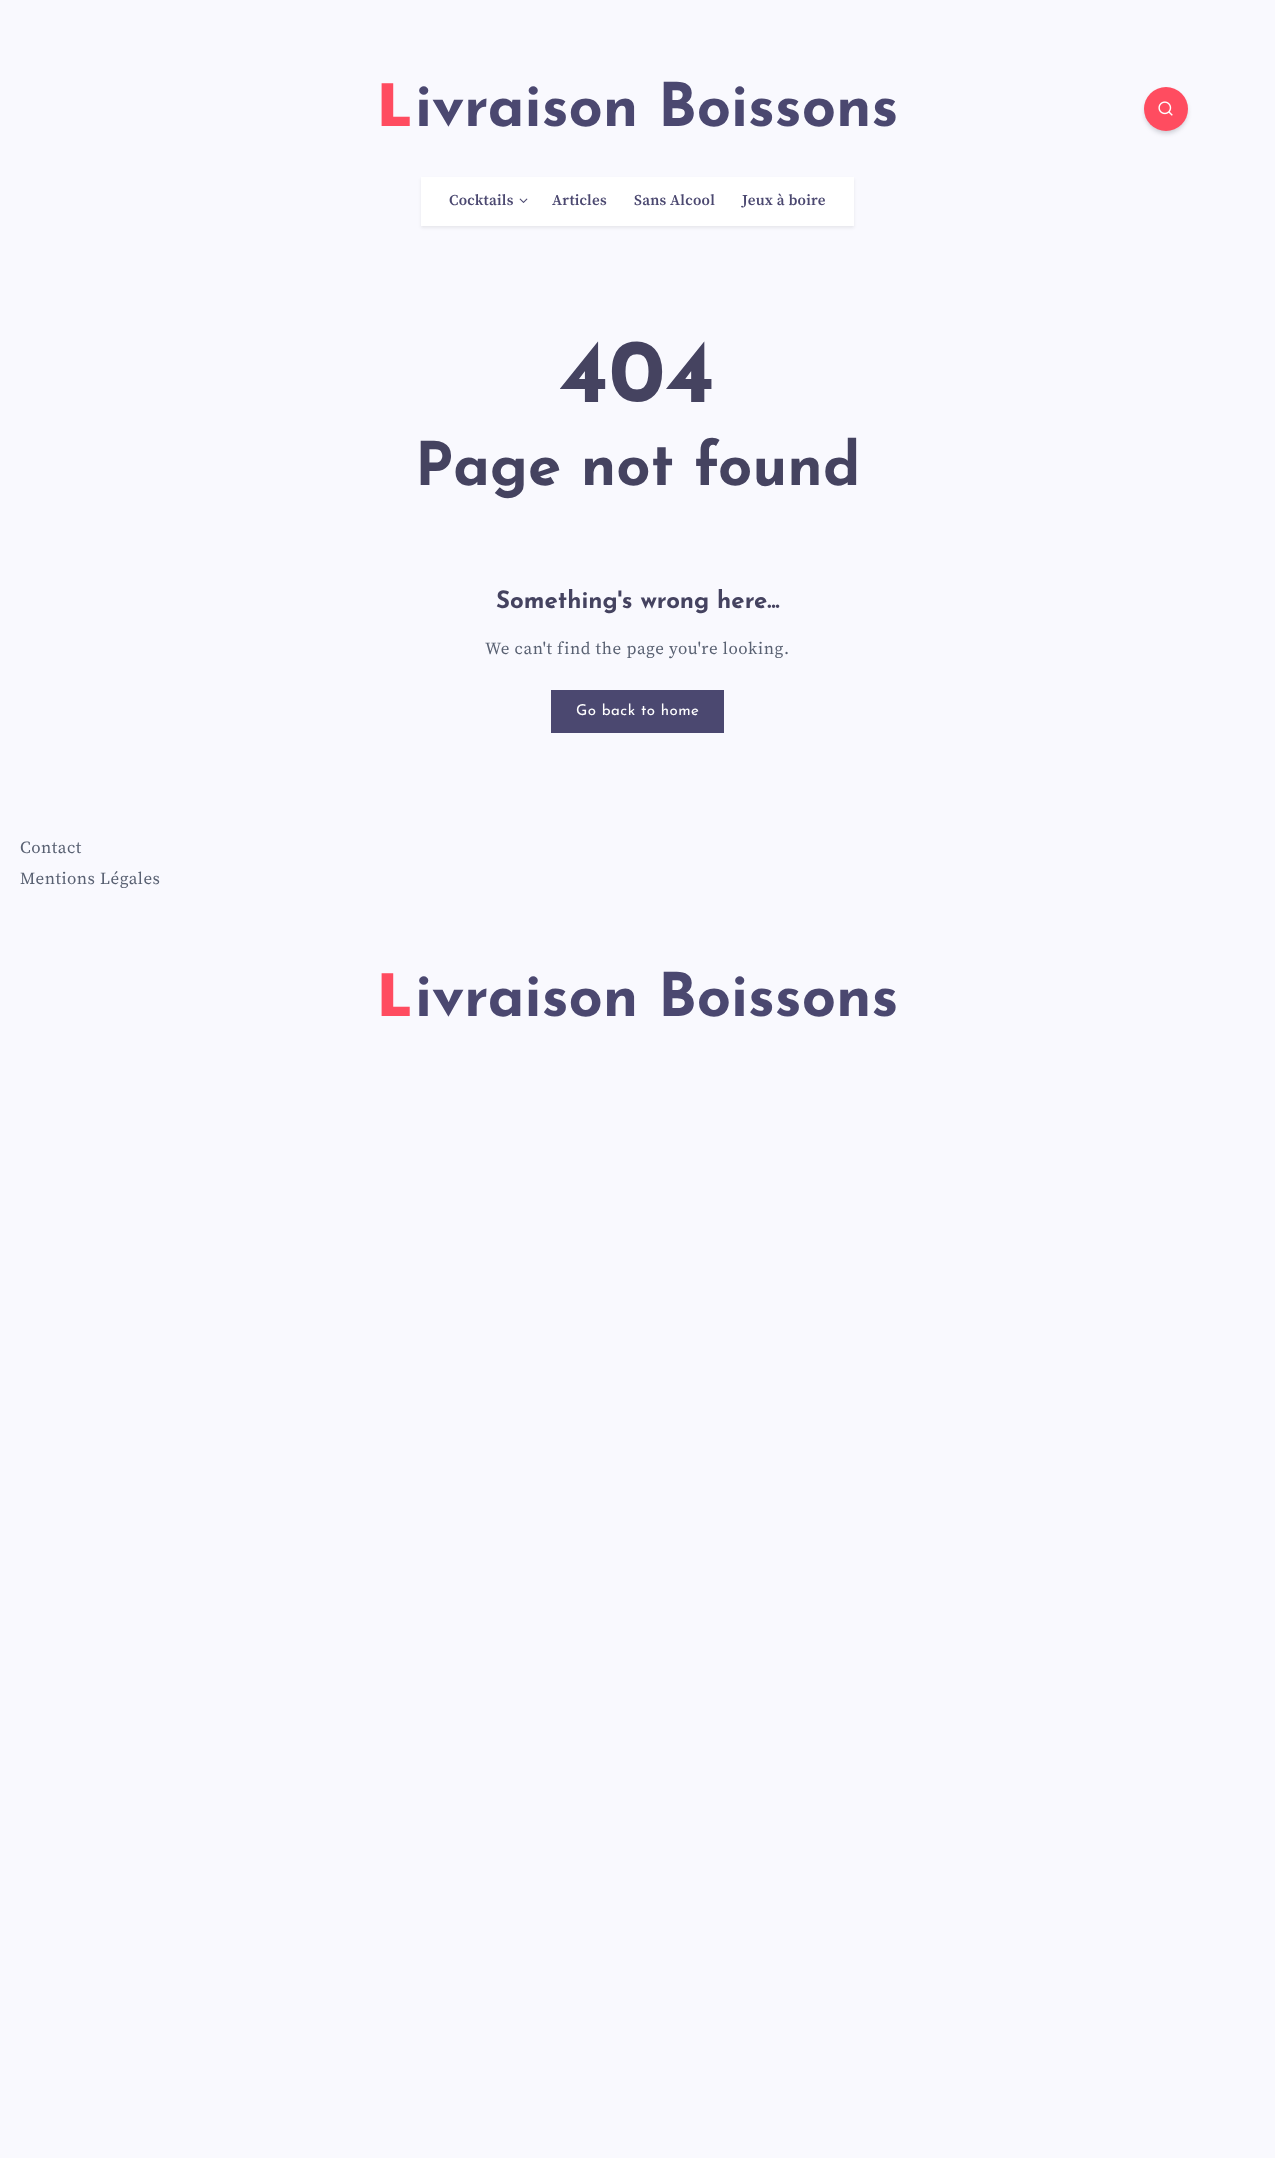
async function draw(canvas) {
  canvas.width = 1275
  canvas.height = 2158
  const ctx = canvas.getContext('2d')
  ctx.miterLimit = 4
  ctx.fontKerning = 'normal'
  async function loadImage(src) {
    const img = new Image()
    img.src = src
    await img.decode()
    return img
  }

  ctx.fillStyle = '#f9f9fe'
  ctx.fillRect(0, 0, 1275, 2158)
  ctx.font = '900 60px Noto Sans'
  ctx.fillStyle = '#ff4c60'
  ctx.fillText('L', 377, 126)
  ctx.font = 'bold 60px Josefin Sans'
  ctx.fillStyle = '#4b4870'
  ctx.fillText('ivraison Boissons', 415, 126)
  ctx.fillStyle = '#070a1933'
  ctx.filter = 'blur(2.5px)'
  ctx.beginPath()
  ctx.roundRect(1145, 91, 42, 42, 21)
  ctx.fill()
  ctx.filter = 'none'
  ctx.fillStyle = '#ff4c60'
  ctx.beginPath()
  ctx.arc(1166, 109, 22, 0, 2 * Math.PI)
  ctx.fill()
  ctx.drawImage(await loadImage('image0.png'), 1158, 101, 15, 15)
  ctx.fillStyle = '#00000012'
  ctx.filter = 'blur(1.5px)'
  ctx.beginPath()
  ctx.rect(421, 179, 433, 49)
  ctx.fill()
  ctx.filter = 'none'
  ctx.fillStyle = '#fff'
  ctx.fillRect(421, 177, 433, 49)
  ctx.letterSpacing = '0.25px'
  ctx.font = '600 15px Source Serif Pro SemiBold'
  ctx.fillStyle = '#4b4870'
  ctx.fillText('Cocktails', 449, 205)
  ctx.drawImage(await loadImage('image1.png'), 519, 198, 9, 5)
  ctx.fillText('Articles', 552, 205)
  ctx.fillText('Sans Alcool', 634, 205)
  ctx.fillText('Jeux à boire', 742, 205)
  ctx.letterSpacing = '0px'
  ctx.font = 'bold 90px Josefin Sans'
  ctx.fillStyle = '#454360'
  ctx.fillText('404', 559, 402)
  ctx.font = 'bold 60px Josefin Sans'
  ctx.fillText('Page not found', 415, 485)
  ctx.font = 'bold 24px Josefin Sans'
  ctx.fillText('Something\'s wrong here...', 496, 608)
  ctx.letterSpacing = '0.6px'
  ctx.font = '17px Source Serif Pro'
  ctx.fillStyle = '#596172'
  ctx.fillText('We can\'t find the page you\'re looking.', 485, 654)
  ctx.fillStyle = '#4b4870'
  ctx.fillRect(551, 690, 173, 43)
  ctx.letterSpacing = '0.5px'
  ctx.font = '15px Josefin Sans'
  ctx.fillStyle = '#fff'
  ctx.fillText('Go back to home', 576, 715)
  ctx.font = '17px Source Serif Pro'
  ctx.fillStyle = '#596172'
  ctx.fillText('Contact', 20, 853)
  ctx.fillText('Mentions Légales', 20, 884)
  ctx.letterSpacing = '0px'
  ctx.font = '900 60px Noto Sans'
  ctx.fillStyle = '#ff4c60'
  ctx.fillText('L', 377, 1016)
  ctx.font = 'bold 60px Josefin Sans'
  ctx.fillStyle = '#4b4870'
  ctx.fillText('ivraison Boissons', 415, 1016)
}

draw(document.querySelector('canvas'))
